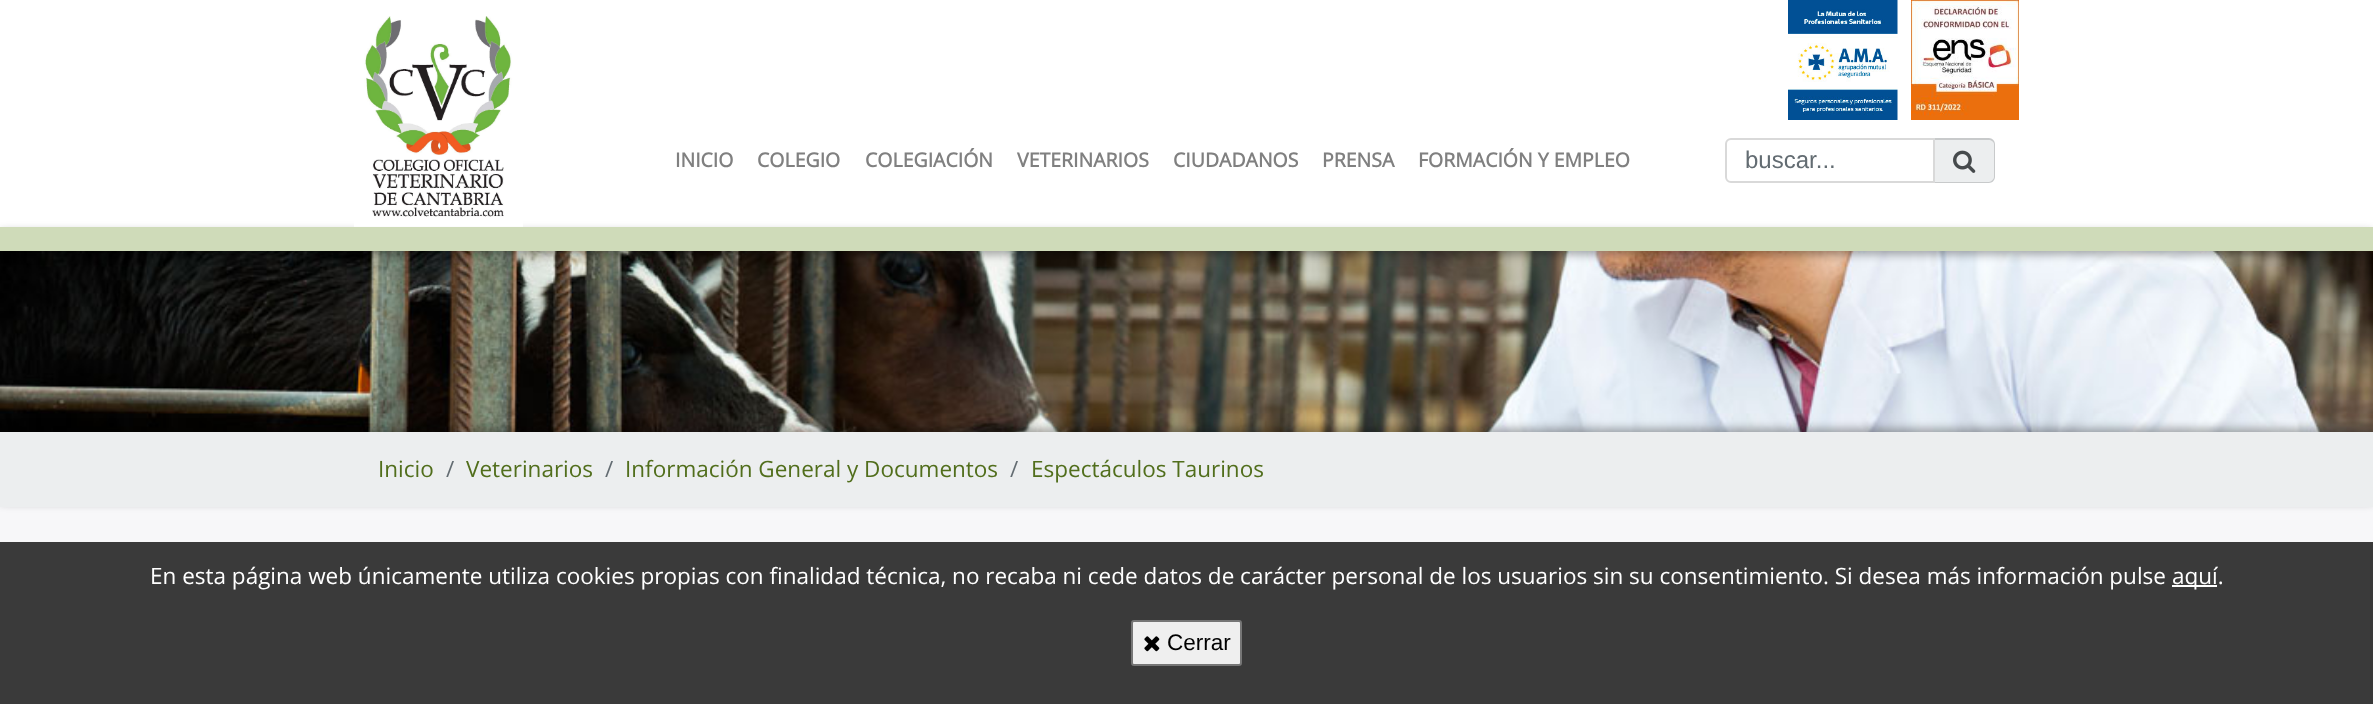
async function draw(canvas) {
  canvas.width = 2373
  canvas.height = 704
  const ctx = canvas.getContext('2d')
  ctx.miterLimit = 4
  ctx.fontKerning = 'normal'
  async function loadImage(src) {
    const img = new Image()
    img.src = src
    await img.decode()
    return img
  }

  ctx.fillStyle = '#f7f7f9'
  ctx.fillRect(0, 0, 2373, 704)
  ctx.fillStyle = '#fff'
  ctx.fillRect(0, 0, 2373, 251)
  ctx.drawImage(await loadImage('image4.png'), 0, 251, 2373, 181)
  ctx.save()
  ctx.beginPath()
  ctx.moveTo(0, 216)
  ctx.lineTo(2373, 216)
  ctx.lineTo(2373, 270)
  ctx.lineTo(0, 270)
  ctx.closePath()
  ctx.moveTo(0, 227)
  ctx.lineTo(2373, 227)
  ctx.lineTo(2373, 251)
  ctx.lineTo(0, 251)
  ctx.closePath()
  ctx.clip('evenodd')
  ctx.fillStyle = '#0000004f'
  ctx.filter = 'blur(4.5px)'
  ctx.beginPath()
  ctx.rect(0, 231, 2373, 24)
  ctx.fill()
  ctx.filter = 'none'
  ctx.restore()
  ctx.drawImage(await loadImage('image0.png'), 354, 16, 169, 211)
  ctx.drawImage(await loadImage('image1.png'), 1788, 0, 110, 120)
  ctx.drawImage(await loadImage('image2.png'), 1911, 0, 108, 120)
  ctx.font = 'bold 19.5px Open Sans'
  ctx.fillStyle = '#808080'
  ctx.fillText('INICIO', 675, 167)
  ctx.fillText('COLEGIO', 757, 167)
  ctx.fillText('COLEGIACIÓN', 865, 167)
  ctx.fillText('VETERINARIOS', 1017, 167)
  ctx.fillText('CIUDADANOS', 1173, 167)
  ctx.fillText('PRENSA', 1322, 167)
  ctx.fillText('FORMACIÓN Y EMPLEO', 1418, 167)
  ctx.beginPath()
  ctx.roundRect(1726, 139, 208, 43, [5, 0, 0, 5])
  ctx.strokeStyle = '#d9d9d9'
  ctx.lineWidth = 2
  ctx.stroke()
  ctx.font = '24px Liberation Sans'
  ctx.fillStyle = '#636c72'
  ctx.fillText('buscar...', 1745, 168)
  ctx.fillStyle = '#eceeef'
  ctx.beginPath()
  ctx.roundRect(1935, 138, 60, 45, [0, 6, 6, 0])
  ctx.fill()
  ctx.fillStyle = '#00000026'
  ctx.beginPath()
  ctx.moveTo(1935, 138)
  ctx.lineTo(1989, 138)
  ctx.bezierCurveTo(1992, 138, 1995, 141, 1995, 144)
  ctx.lineTo(1995, 177)
  ctx.bezierCurveTo(1995, 180, 1992, 183, 1989, 183)
  ctx.lineTo(1935, 183)
  ctx.closePath()
  ctx.moveTo(1935, 140)
  ctx.lineTo(1989, 140)
  ctx.bezierCurveTo(1991, 140, 1994, 142, 1994, 144)
  ctx.lineTo(1994, 177)
  ctx.bezierCurveTo(1994, 179, 1991, 182, 1989, 182)
  ctx.lineTo(1935, 182)
  ctx.closePath()
  ctx.fill('evenodd')
  ctx.drawImage(await loadImage('image3.png'), 1953, 150, 23, 23)
  ctx.fillStyle = '#9db5717d'
  ctx.fillRect(0, 227, 2373, 24)
  ctx.fillStyle = '#0000004f'
  ctx.filter = 'blur(4.5px)'
  ctx.beginPath()
  ctx.rect(0, 428, 2373, 75)
  ctx.fill()
  ctx.filter = 'none'
  ctx.fillStyle = '#eceeef'
  ctx.fillRect(0, 432, 2373, 75)
  ctx.font = '22.5px Open Sans'
  ctx.fillStyle = '#516e1c'
  ctx.fillText('Inicio', 378, 477)
  ctx.fillStyle = '#636c72'
  ctx.fillText('/', 446, 477)
  ctx.fillStyle = '#516e1c'
  ctx.fillText('Veterinarios', 466, 477)
  ctx.fillStyle = '#636c72'
  ctx.fillText('/', 605, 477)
  ctx.fillStyle = '#516e1c'
  ctx.fillText('Información General y Documentos', 625, 477)
  ctx.fillStyle = '#636c72'
  ctx.fillText('/', 1010, 477)
  ctx.fillStyle = '#516e1c'
  ctx.fillText('Espectáculos Taurinos', 1031, 477)
  ctx.fillStyle = '#3a3a3a'
  ctx.fillRect(0, 542, 2373, 162)
  ctx.fillStyle = '#fff'
  ctx.fillText('En esta página web únicamente utiliza cookies propias con finalidad técnica, no recaba ni cede datos de carácter personal de los usuarios sin su consentimiento. Si desea más información pulse', 150, 584)
  ctx.fillRect(2172, 585, 45, 2)
  ctx.fillText('aquí.', 2172, 584)
  ctx.fillStyle = '#efefef'
  ctx.beginPath()
  ctx.roundRect(1132, 621, 109, 44, 2)
  ctx.fill()
  ctx.strokeStyle = '#767676'
  ctx.stroke()
  ctx.drawImage(await loadImage('image5.png'), 1144, 636, 16, 16)
  ctx.font = '22.5px Liberation Sans'
  ctx.fillStyle = '#000'
  ctx.fillText('Cerrar', 1167, 650)
}

draw(document.querySelector('canvas'))
